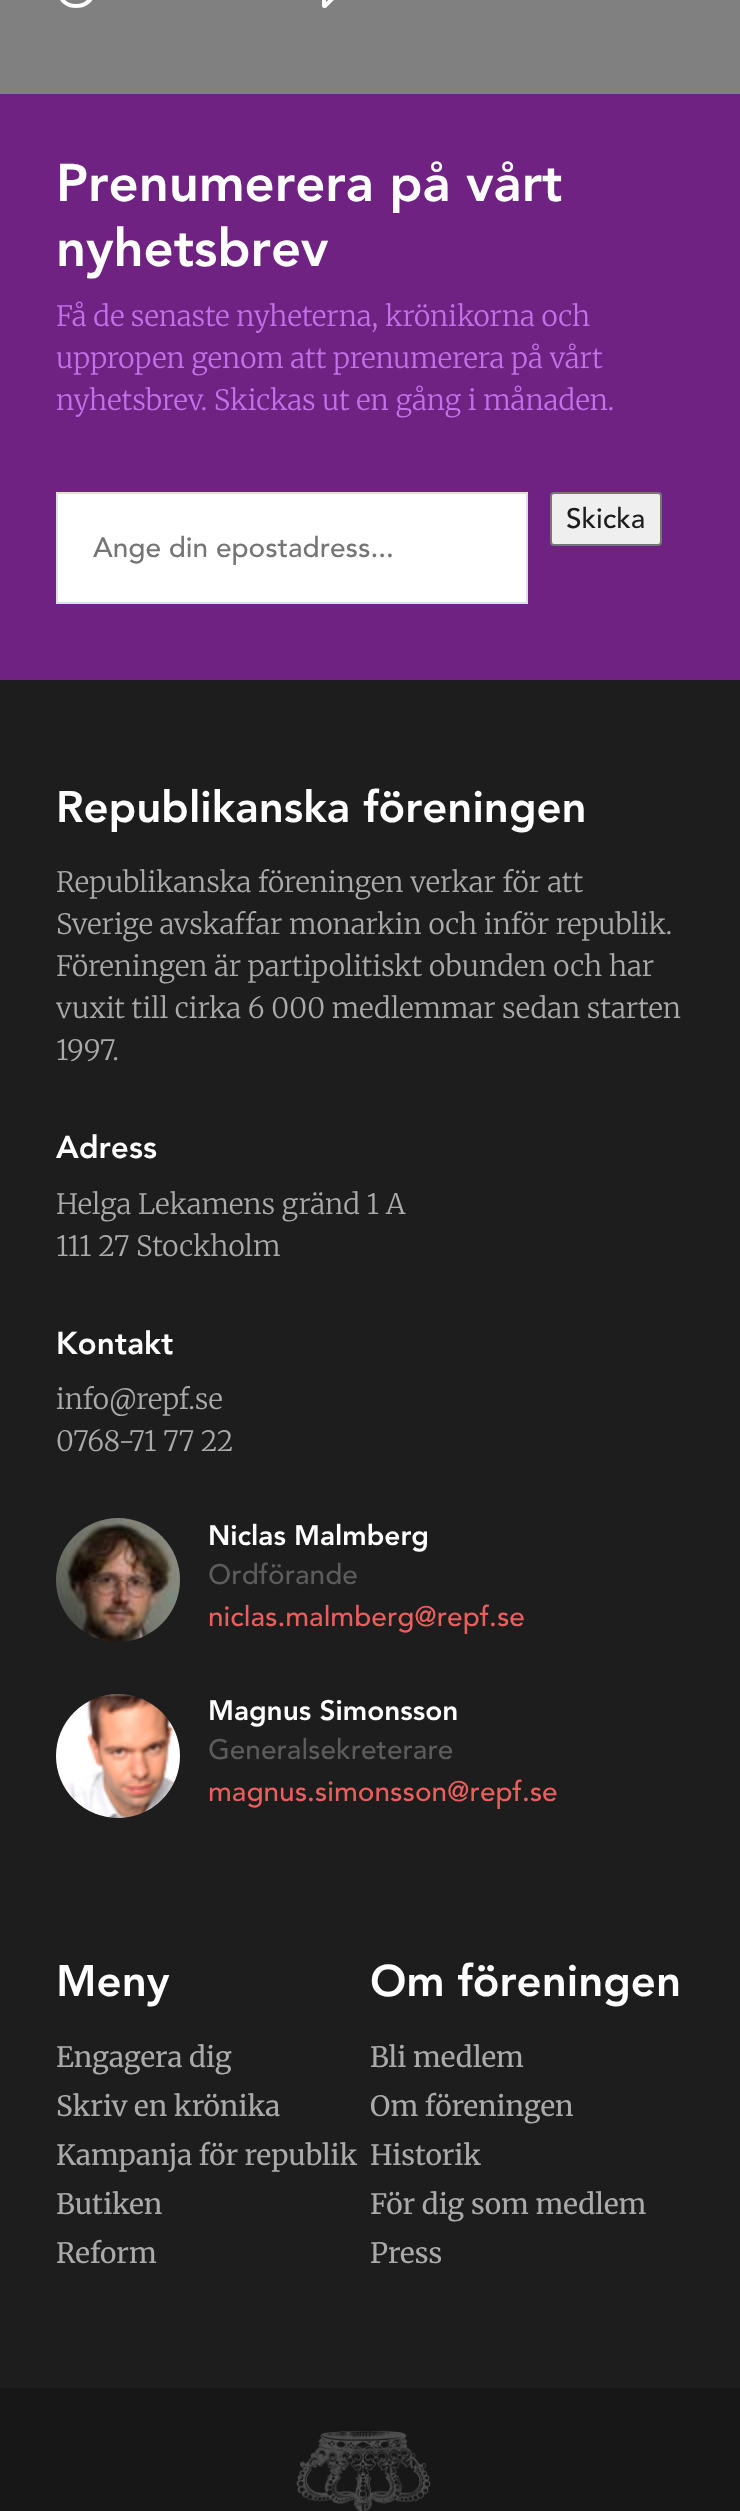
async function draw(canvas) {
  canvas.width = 740
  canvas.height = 2511
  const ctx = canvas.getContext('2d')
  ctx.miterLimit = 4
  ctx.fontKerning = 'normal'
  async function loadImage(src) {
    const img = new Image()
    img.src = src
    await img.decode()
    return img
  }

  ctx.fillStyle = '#6f2282'
  ctx.fillRect(0, 0, 740, 2511)
  ctx.fillStyle = '#808080'
  ctx.fillRect(0, 0, 740, 94)
  ctx.fillStyle = '#fff'
  ctx.beginPath()
  ctx.moveTo(76, 4)
  ctx.bezierCurveTo(97, 4, 97, -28, 76, -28)
  ctx.bezierCurveTo(55, -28, 55, 4, 76, 4)
  ctx.closePath()
  ctx.moveTo(76, -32)
  ctx.bezierCurveTo(102, -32, 103, 8, 76, 8)
  ctx.bezierCurveTo(50, 8, 50, -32, 76, -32)
  ctx.closePath()
  ctx.moveTo(77, -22)
  ctx.lineTo(77, -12)
  ctx.lineTo(86, -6)
  ctx.lineTo(84, -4)
  ctx.lineTo(74, -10)
  ctx.lineTo(74, -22)
  ctx.closePath()
  ctx.fill('evenodd')
  ctx.drawImage(await loadImage('image0.png'), 322, 0, 12, 8)
  ctx.font = '52.5px "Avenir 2"'
  ctx.fillText('Prenumerera på vårt', 56, 201)
  ctx.fillText('nyhetsbrev', 56, 266)
  ctx.font = '300 28px Merriweather'
  ctx.fillStyle = '#c172e7'
  ctx.fillText('Få de senaste nyheterna, krönikorna och', 56, 326)
  ctx.fillText('uppropen genom att prenumerera på vårt', 56, 368)
  ctx.fillText('nyhetsbrev. Skickas ut en gång i månaden.', 56, 410)
  ctx.fillStyle = '#efefef'
  ctx.beginPath()
  ctx.roundRect(551, 493, 110, 52, 3)
  ctx.fill()
  ctx.strokeStyle = '#767676'
  ctx.lineWidth = 2
  ctx.stroke()
  ctx.font = '28px Avenir'
  ctx.fillStyle = '#1d1d1d'
  ctx.fillText('Skicka', 566, 528)
  ctx.fillStyle = '#fff'
  ctx.beginPath()
  ctx.rect(57, 493, 470, 110)
  ctx.fill()
  ctx.strokeStyle = '#dfdfdf'
  ctx.stroke()
  ctx.fillStyle = '#757575'
  ctx.fillText('Ange din epostadress...', 93, 557)
  ctx.fillStyle = '#1d1d1d'
  ctx.fillRect(0, 680, 740, 1708)
  ctx.font = '43.75px "Avenir 2"'
  ctx.fillStyle = '#fff'
  ctx.fillText('Republikanska föreningen', 56, 822)
  ctx.font = '300 28px Merriweather'
  ctx.fillStyle = '#aaa'
  ctx.fillText('Republikanska föreningen verkar för att', 56, 892)
  ctx.fillText('Sverige avskaffar monarkin och inför republik.', 56, 934)
  ctx.fillText('Föreningen är partipolitiskt obunden och har', 56, 976)
  ctx.fillText('vuxit till cirka 6 000 medlemmar sedan starten', 56, 1018)
  ctx.fillText('1997.', 56, 1060)
  ctx.font = '31.5px "Avenir 2"'
  ctx.fillStyle = '#fff'
  ctx.fillText('Adress', 56, 1158)
  ctx.font = '300 28px Merriweather'
  ctx.fillStyle = '#aaa'
  ctx.fillText('Helga Lekamens gränd 1 A', 56, 1214)
  ctx.fillText('111 27 Stockholm', 56, 1256)
  ctx.font = '31.5px "Avenir 2"'
  ctx.fillStyle = '#fff'
  ctx.fillText('Kontakt', 56, 1354)
  ctx.font = '300 28px Merriweather'
  ctx.fillStyle = '#aaa'
  ctx.fillText('info@repf.se', 56, 1409)
  ctx.fillText('0768-71 77 22', 56, 1451)
  ctx.drawImage(await loadImage('image1.png'), 56, 1518, 124, 124)
  ctx.font = '28px "Avenir 2"'
  ctx.fillStyle = '#fff'
  ctx.fillText('Niclas Malmberg', 208, 1545)
  ctx.font = '28px Avenir'
  ctx.fillStyle = '#5c5c5c'
  ctx.fillText('Ordförande', 208, 1584)
  ctx.fillStyle = '#eb5e5e'
  ctx.fillText('niclas.malmberg@repf.se', 208, 1626)
  ctx.drawImage(await loadImage('image2.png'), 56, 1694, 124, 124)
  ctx.font = '28px "Avenir 2"'
  ctx.fillStyle = '#fff'
  ctx.fillText('Magnus Simonsson', 208, 1720)
  ctx.font = '28px Avenir'
  ctx.fillStyle = '#5c5c5c'
  ctx.fillText('Generalsekreterare', 208, 1759)
  ctx.fillStyle = '#eb5e5e'
  ctx.fillText('magnus.simonsson@repf.se', 208, 1801)
  ctx.font = '43.75px "Avenir 2"'
  ctx.fillStyle = '#fff'
  ctx.fillText('Meny', 56, 1996)
  ctx.font = '28px Merriweather'
  ctx.fillStyle = '#aaa'
  ctx.fillText('Engagera dig', 56, 2067)
  ctx.fillText('Skriv en krönika', 56, 2116)
  ctx.fillText('Kampanja för republik', 56, 2165)
  ctx.fillText('Butiken', 56, 2214)
  ctx.fillText('Reform', 56, 2263)
  ctx.font = '43.75px "Avenir 2"'
  ctx.fillStyle = '#fff'
  ctx.fillText('Om föreningen', 370, 1996)
  ctx.font = '28px Merriweather'
  ctx.fillStyle = '#aaa'
  ctx.fillText('Bli medlem', 370, 2067)
  ctx.fillText('Om föreningen', 370, 2116)
  ctx.fillText('Historik', 370, 2165)
  ctx.fillText('För dig som medlem', 370, 2214)
  ctx.fillText('Press', 370, 2263)
  ctx.fillStyle = '#171717'
  ctx.fillRect(0, 2388, 740, 123)
  ctx.drawImage(await loadImage('image3.png'), 296, 2431, 135, 80)
}

draw(document.querySelector('canvas'))
